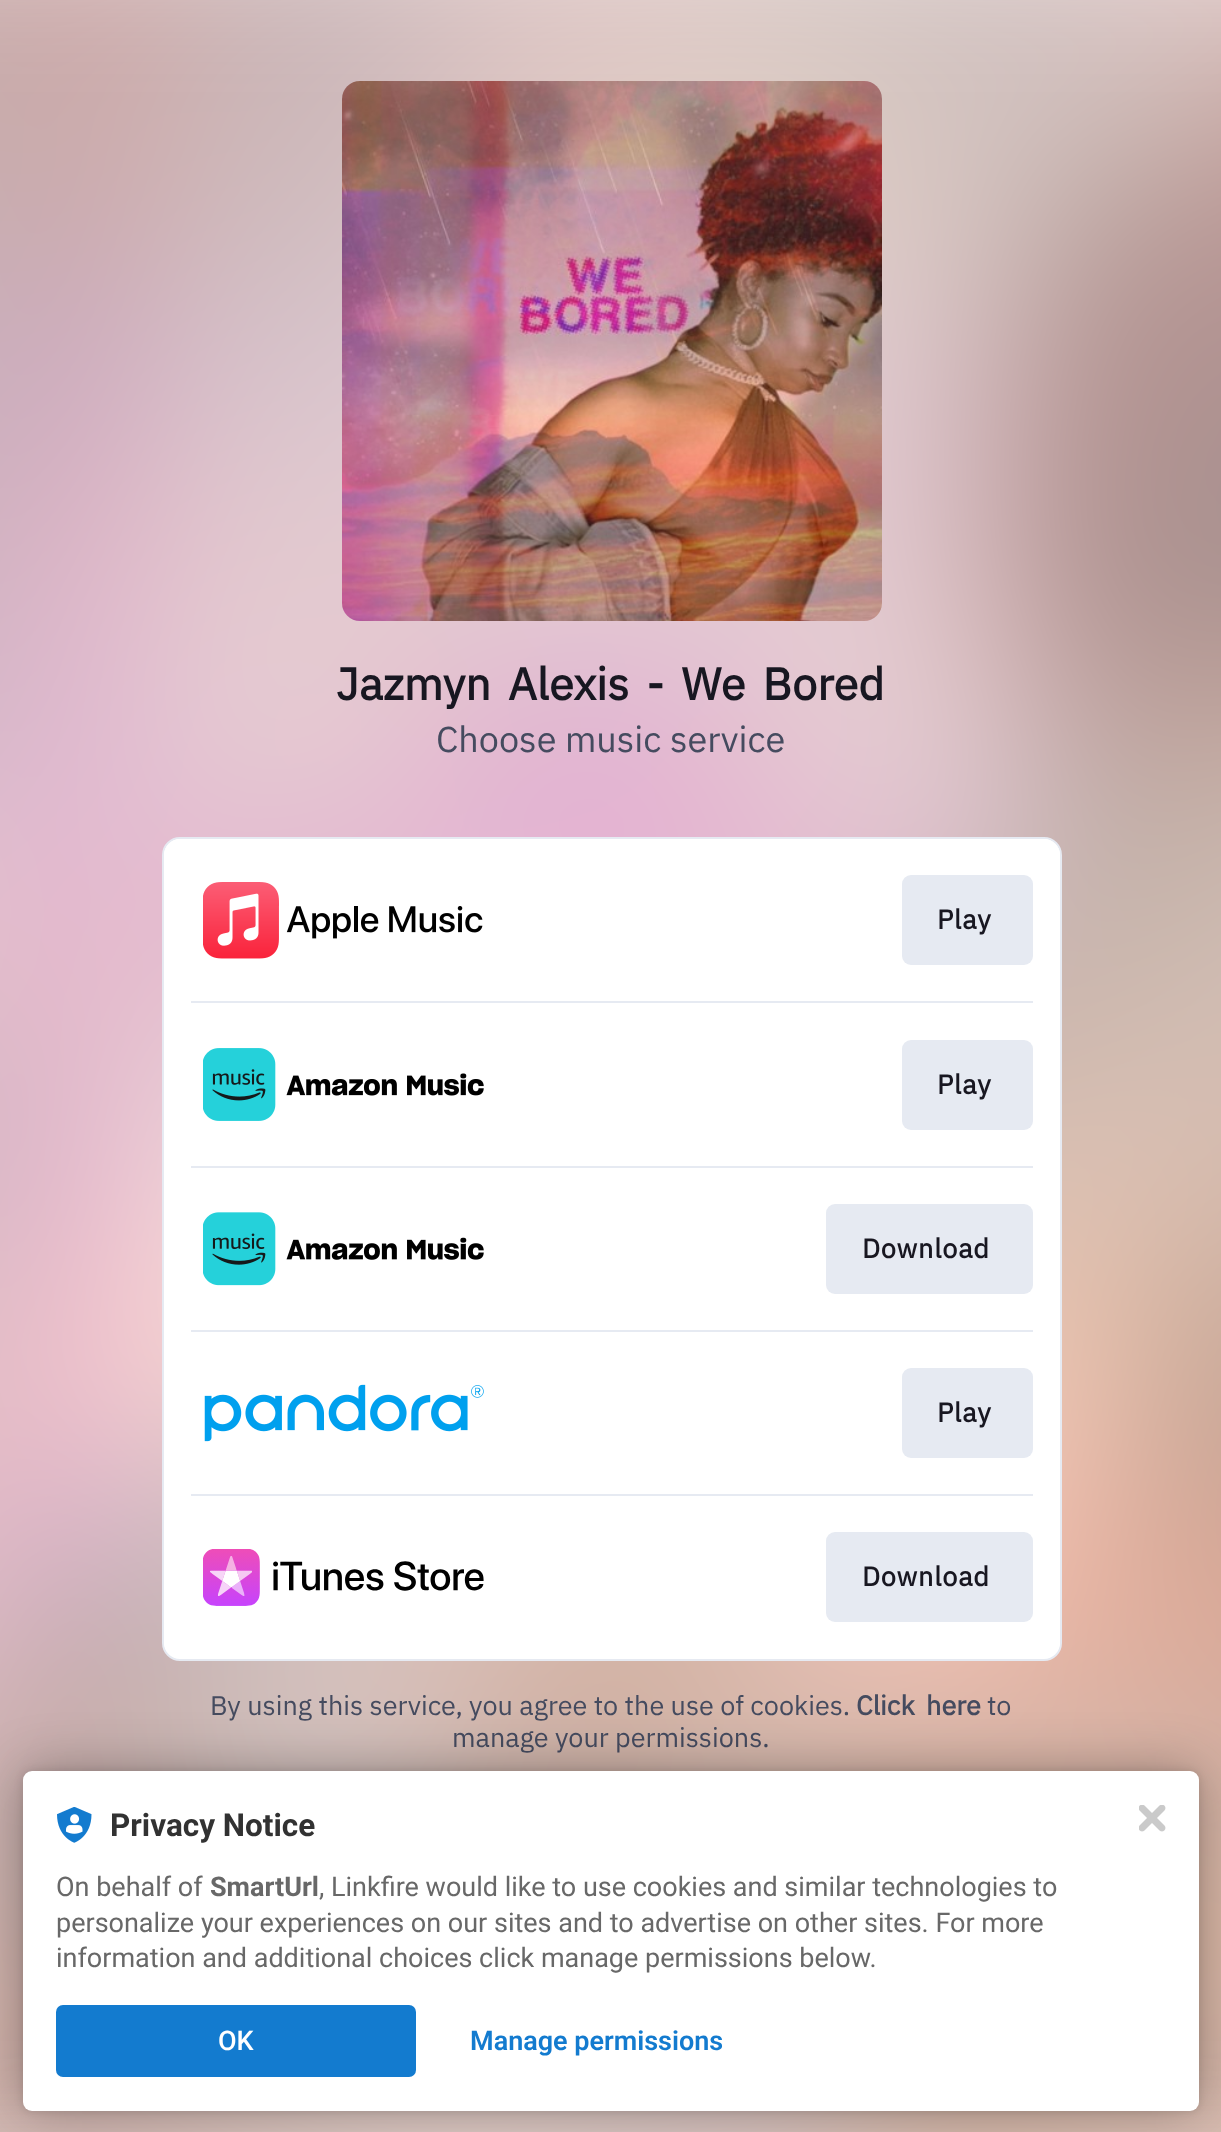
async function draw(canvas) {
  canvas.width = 1221
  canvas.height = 2132
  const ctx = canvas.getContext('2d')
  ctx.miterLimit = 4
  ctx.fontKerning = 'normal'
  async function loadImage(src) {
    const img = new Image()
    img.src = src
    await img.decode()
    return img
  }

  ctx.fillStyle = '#fff'
  ctx.fillRect(0, 0, 1221, 2132)
  ctx.drawImage(await loadImage('image0.png'), 0, 0, 1221, 2132)
  ctx.drawImage(await loadImage('image1.png'), 342, 81, 540, 540)
  ctx.wordSpacing = '6.5px'
  ctx.font = 'bold 45px IBM Plex Sans'
  ctx.fillStyle = '#181721'
  ctx.fillText('Jazmyn Alexis - We Bored', 336, 700)
  ctx.wordSpacing = '0px'
  ctx.font = '36px IBM Plex Sans'
  ctx.fillStyle = '#454b5f'
  ctx.fillText('Choose music service', 436, 752)
  ctx.fillStyle = '#fff'
  ctx.beginPath()
  ctx.roundRect(163, 838, 898, 822, 17)
  ctx.fill()
  ctx.strokeStyle = '#e6eaf2'
  ctx.lineWidth = 2
  ctx.stroke()
  ctx.beginPath()
  ctx.roundRect(164, 839, 896, 819, 16)
  ctx.fill()
  ctx.drawImage(await loadImage('image2.png'), 203, 882, 280, 77)
  ctx.fillStyle = '#e6eaf2'
  ctx.beginPath()
  ctx.roundRect(902, 875, 131, 90, 9)
  ctx.fill()
  ctx.letterSpacing = '0.75px'
  ctx.font = 'bold 27px IBM Plex Sans'
  ctx.fillStyle = '#181721'
  ctx.fillText('Play', 937, 929)
  ctx.fillStyle = '#e6eaf2'
  ctx.fillRect(191, 1001, 842, 2)
  ctx.drawImage(await loadImage('image3.png'), 203, 1048, 281, 73)
  ctx.beginPath()
  ctx.roundRect(902, 1040, 131, 90, 9)
  ctx.fill()
  ctx.fillStyle = '#181721'
  ctx.fillText('Play', 937, 1094)
  ctx.fillStyle = '#e6eaf2'
  ctx.fillRect(191, 1166, 842, 2)
  ctx.drawImage(await loadImage('image4.png'), 203, 1212, 281, 74)
  ctx.beginPath()
  ctx.roundRect(826, 1204, 207, 90, 9)
  ctx.fill()
  ctx.fillStyle = '#181721'
  ctx.fillText('Download', 862, 1258)
  ctx.fillStyle = '#e6eaf2'
  ctx.fillRect(191, 1330, 842, 2)
  ctx.drawImage(await loadImage('image5.png'), 204, 1384, 280, 58)
  ctx.beginPath()
  ctx.roundRect(902, 1368, 131, 90, 9)
  ctx.fill()
  ctx.fillStyle = '#181721'
  ctx.fillText('Play', 937, 1422)
  ctx.fillStyle = '#e6eaf2'
  ctx.fillRect(191, 1494, 842, 2)
  ctx.drawImage(await loadImage('image6.png'), 203, 1549, 281, 57)
  ctx.beginPath()
  ctx.roundRect(826, 1532, 207, 90, 9)
  ctx.fill()
  ctx.fillStyle = '#181721'
  ctx.fillText('Download', 862, 1586)
  ctx.letterSpacing = '0px'
  ctx.font = '27px IBM Plex Sans'
  ctx.fillStyle = '#454b5f'
  ctx.fillText('By using this service, you agree to the use of cookies.', 210, 1715)
  ctx.wordSpacing = '5px'
  ctx.font = 'bold 27px IBM Plex Sans'
  ctx.fillText('Click here', 856, 1715)
  ctx.wordSpacing = '0px'
  ctx.font = '27px IBM Plex Sans'
  ctx.fillText('to', 987, 1715)
  ctx.fillText('manage your permissions.', 452, 1747)
  ctx.fillStyle = '#0000001f'
  ctx.filter = 'blur(4.5px)'
  ctx.beginPath()
  ctx.roundRect(23, 1771, 1176, 340, 9)
  ctx.fill()
  ctx.filter = 'none'
  ctx.fillStyle = '#0000004d'
  ctx.filter = 'blur(27px)'
  ctx.beginPath()
  ctx.roundRect(23, 1771, 1176, 340, 9)
  ctx.fill()
  ctx.filter = 'none'
  ctx.fillStyle = '#fff'
  ctx.beginPath()
  ctx.roundRect(23, 1771, 1176, 340, 9)
  ctx.fill()
  ctx.drawImage(await loadImage('image7.png'), 57, 1807, 35, 36)
  ctx.font = 'bold 31.5px Roboto'
  ctx.fillStyle = '#323232'
  ctx.fillText('Privacy Notice', 110, 1836)
  ctx.font = '27px Roboto'
  ctx.fillStyle = '#686868'
  ctx.fillText('On behalf of', 56, 1896)
  ctx.font = 'bold 27px Roboto'
  ctx.fillText('SmartUrl', 210, 1896)
  ctx.font = '27px Roboto'
  ctx.fillText(', Linkfire would like to use cookies and similar technologies to', 319, 1896)
  ctx.fillText('personalize your experiences on our sites and to advertise on other sites. For more', 56, 1932)
  ctx.fillText('information and additional choices click manage permissions below.', 56, 1967)
  ctx.fillStyle = '#137bcf'
  ctx.beginPath()
  ctx.roundRect(56, 2005, 360, 72, 7)
  ctx.fill()
  ctx.font = '500 27px Roboto'
  ctx.fillStyle = '#fff'
  ctx.fillText('OK', 218, 2050)
  ctx.font = '600 27px Roboto'
  ctx.fillStyle = '#137bcf'
  ctx.fillText('Manage permissions', 470, 2050)
  ctx.drawImage(await loadImage('image8.png'), 1139, 1805, 27, 27)
}

draw(document.querySelector('canvas'))
